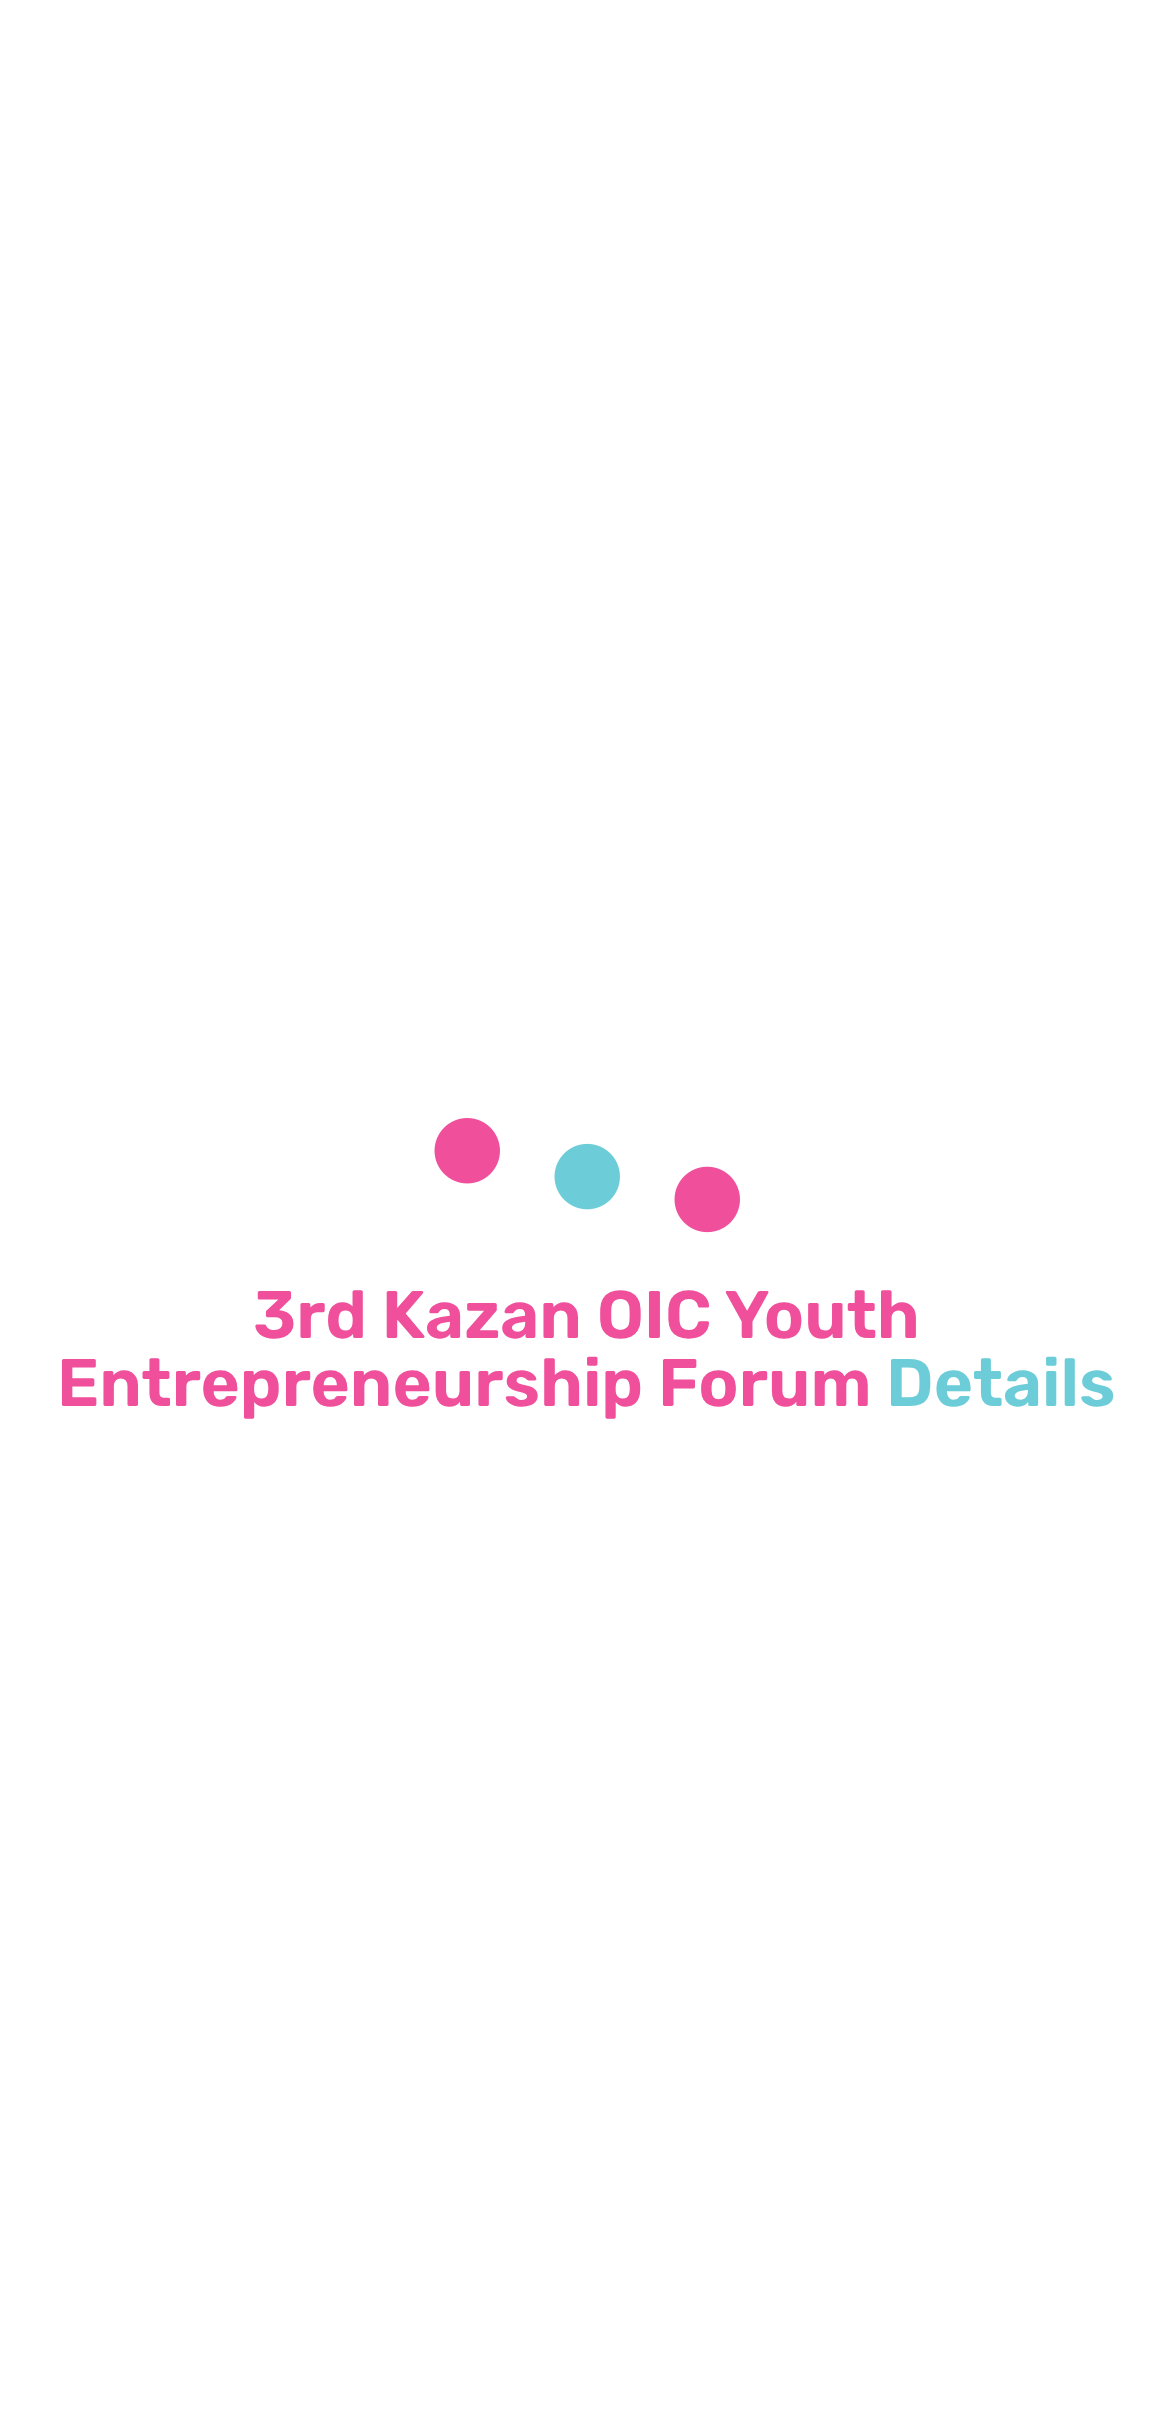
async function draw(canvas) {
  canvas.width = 1173
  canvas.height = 2435
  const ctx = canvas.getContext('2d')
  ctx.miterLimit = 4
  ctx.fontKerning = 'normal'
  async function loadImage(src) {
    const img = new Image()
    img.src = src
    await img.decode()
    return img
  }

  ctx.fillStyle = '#fff'
  ctx.fillRect(0, 0, 1173, 2435)
  ctx.drawImage(await loadImage('image0.png'), 434, 1118, 306, 115)
  ctx.font = '600 67.25px Rubik'
  ctx.fillStyle = '#ef4f9b'
  ctx.fillText('3rd Kazan OIC Youth', 253, 1338)
  ctx.fillText('Entrepreneurship Forum', 57, 1406)
  ctx.fillStyle = '#6ccdd9'
  ctx.fillText('Details', 886, 1406)
}

draw(document.querySelector('canvas'))
